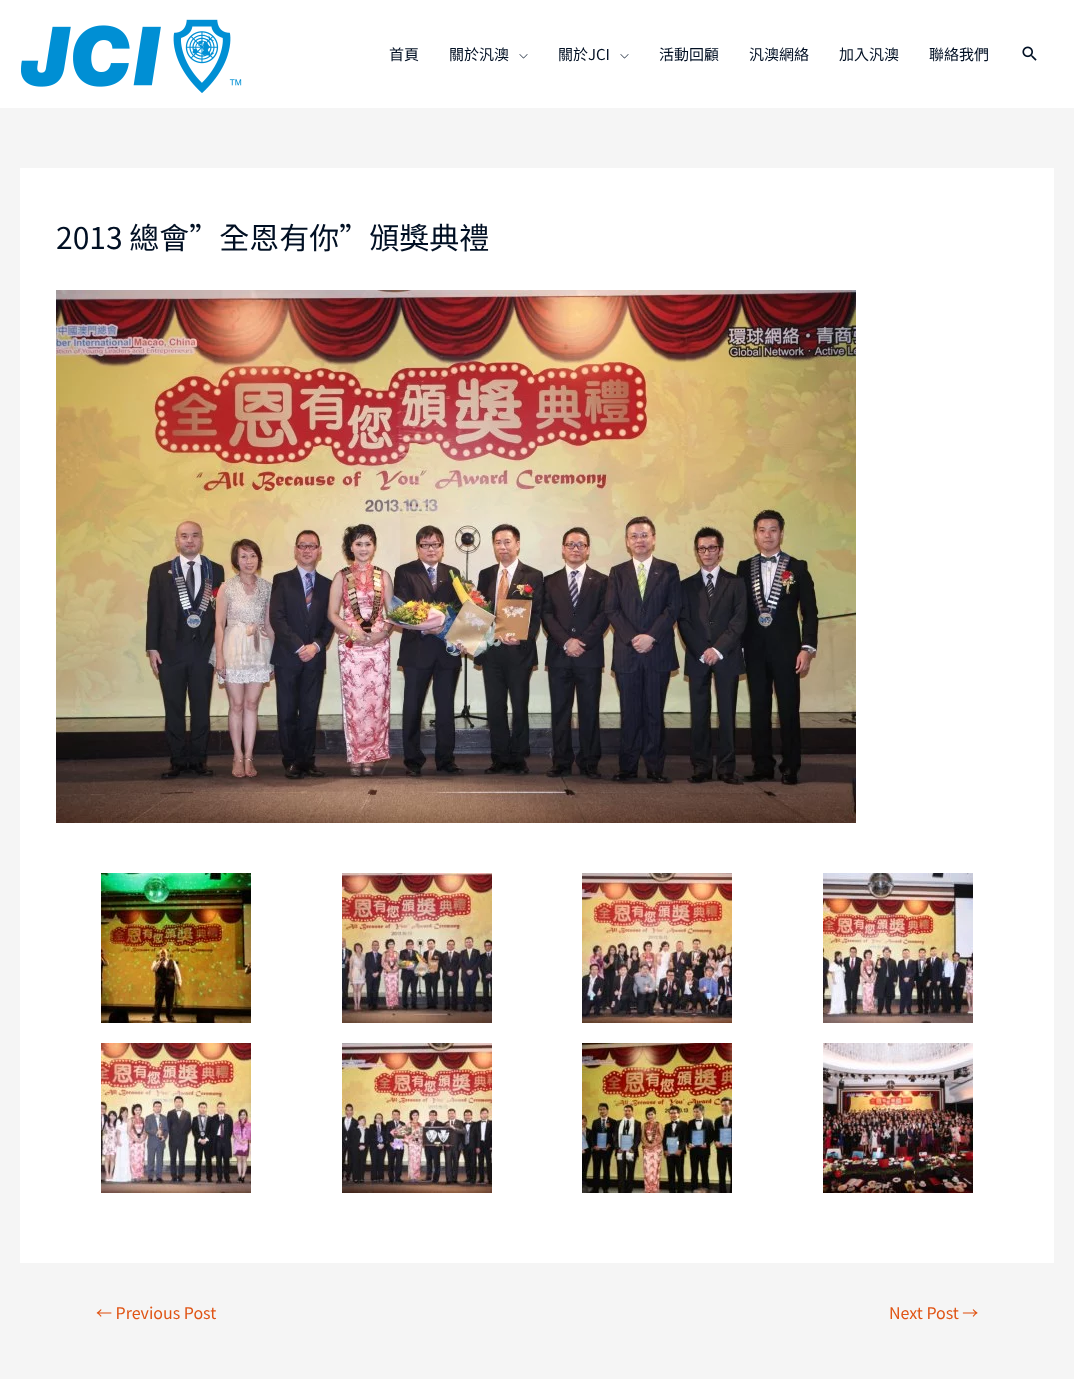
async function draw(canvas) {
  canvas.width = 1074
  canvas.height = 1379
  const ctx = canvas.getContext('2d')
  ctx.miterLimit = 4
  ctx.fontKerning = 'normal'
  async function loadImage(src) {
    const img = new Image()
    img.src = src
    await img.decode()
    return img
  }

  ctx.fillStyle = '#f5f5f5'
  ctx.fillRect(0, 0, 1074, 1379)
  ctx.fillStyle = '#fff'
  ctx.fillRect(0, 0, 1074, 108)
  ctx.drawImage(await loadImage('image0.png'), 21, 19, 221, 74)
  ctx.font = '100 15px Noto Sans TC'
  ctx.fillStyle = '#000f23'
  ctx.fillText('首頁', 389, 60)
  ctx.fillText('關於汎澳', 449, 60)
  ctx.drawImage(await loadImage('image1.png'), 519, 54, 9, 5)
  ctx.fillText('關於JCI', 558, 60)
  ctx.drawImage(await loadImage('image1.png'), 620, 54, 9, 5)
  ctx.fillText('活動回顧', 659, 60)
  ctx.fillText('汎澳網絡', 749, 60)
  ctx.fillText('加入汎澳', 839, 60)
  ctx.fillText('聯絡我們', 929, 60)
  ctx.drawImage(await loadImage('image2.png'), 1022, 46, 15, 15)
  ctx.fillStyle = '#fff'
  ctx.fillRect(20, 168, 1034, 1095)
  ctx.font = '100 30px Noto Sans TC'
  ctx.fillStyle = '#000f23'
  ctx.fillText('2013 總會”全恩有你”頒獎典禮', 56, 249)
  ctx.drawImage(await loadImage('image3.png'), 56, 290, 800, 533)
  ctx.drawImage(await loadImage('image4.png'), 101, 873, 150, 150)
  ctx.drawImage(await loadImage('image5.png'), 342, 873, 150, 150)
  ctx.drawImage(await loadImage('image6.png'), 582, 873, 150, 150)
  ctx.drawImage(await loadImage('image7.png'), 823, 873, 150, 150)
  ctx.drawImage(await loadImage('image8.png'), 101, 1043, 150, 150)
  ctx.drawImage(await loadImage('image9.png'), 342, 1043, 150, 150)
  ctx.drawImage(await loadImage('image10.png'), 582, 1043, 150, 150)
  ctx.drawImage(await loadImage('image11.png'), 823, 1043, 150, 150)
  ctx.font = '100 16px Noto Sans TC'
  ctx.fillStyle = '#e05414'
  ctx.fillText('← Previous Post', 96, 1319)
  ctx.fillText('Next Post →', 889, 1319)
}

draw(document.querySelector('canvas'))
